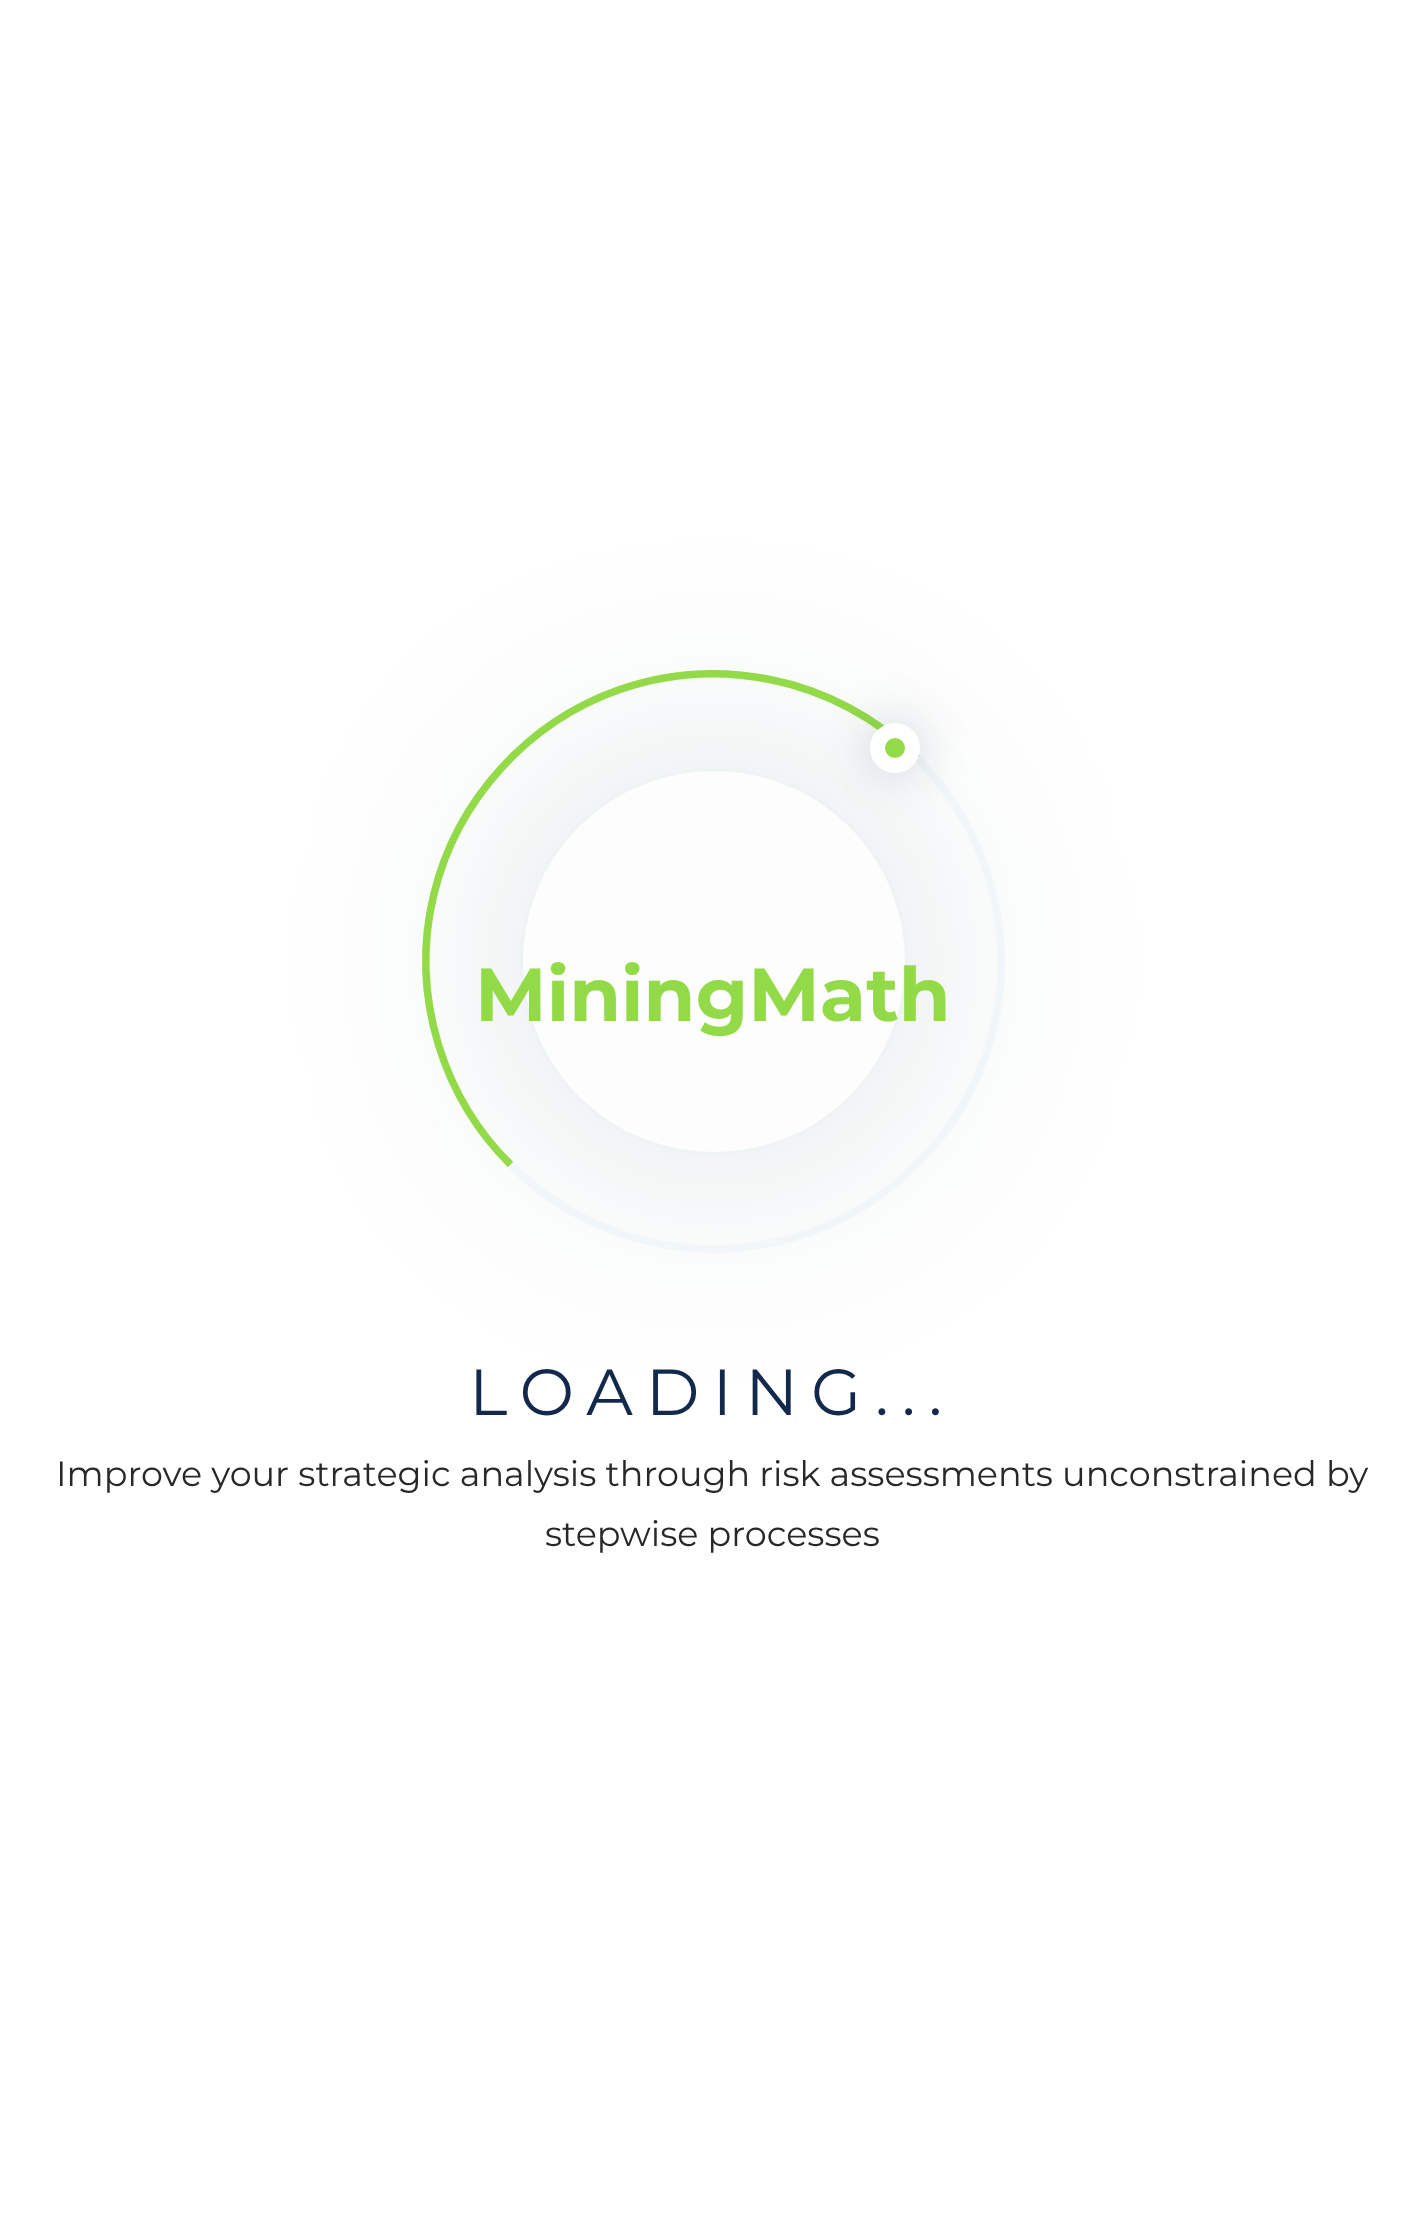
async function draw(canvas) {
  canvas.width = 1425
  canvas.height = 2231
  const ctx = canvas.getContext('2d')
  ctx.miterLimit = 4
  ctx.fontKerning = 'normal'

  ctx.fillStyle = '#fff'
  ctx.fillRect(0, 0, 1425, 2231)
  ctx.fillStyle = '#042e3824'
  ctx.filter = 'blur(125px)'
  ctx.beginPath()
  ctx.roundRect(520, 768, 388, 387, 193.5)
  ctx.fill()
  ctx.filter = 'none'
  ctx.fillStyle = '#fdfdfd'
  ctx.beginPath()
  ctx.roundRect(521.5, 769.5, 385, 384, 192)
  ctx.fill()
  ctx.strokeStyle = '#eef3f4'
  ctx.lineWidth = 3
  ctx.stroke()
  ctx.font = 'bold 75px Montserrat'
  ctx.fillStyle = '#93da49'
  ctx.fillText('MiningMath', 475, 1021)
  ctx.beginPath()
  ctx.moveTo(917, 758)
  ctx.bezierCurveTo(957, 798, 984.5, 849.5, 995.5, 905)
  ctx.bezierCurveTo(1038, 1117.5, 837.5, 1299.5, 630, 1236.5)
  ctx.bezierCurveTo(585, 1222.5, 543.5, 1198, 510.5, 1164.5)
  ctx.strokeStyle = '#f1f6f8'
  ctx.lineWidth = 7.5
  ctx.stroke()
  ctx.beginPath()
  ctx.moveTo(510.5, 1164.5)
  ctx.bezierCurveTo(477, 1131.5, 452.5, 1090, 438.5, 1045)
  ctx.bezierCurveTo(375.5, 837.5, 557.5, 637, 770, 679.5)
  ctx.bezierCurveTo(825.5, 690.5, 877, 718, 917, 758)
  ctx.strokeStyle = '#93da49'
  ctx.stroke()
  ctx.fillStyle = '#042e3833'
  ctx.filter = 'blur(25px)'
  ctx.beginPath()
  ctx.roundRect(870, 723, 50, 50, 25)
  ctx.fill()
  ctx.filter = 'none'
  ctx.fillStyle = '#93da49'
  ctx.beginPath()
  ctx.arc(895, 748, 17.5, 0, 2 * Math.PI)
  ctx.fill()
  ctx.strokeStyle = '#fff'
  ctx.lineWidth = 15
  ctx.stroke()
  ctx.letterSpacing = '13px'
  ctx.font = '65px Montserrat'
  ctx.fillStyle = '#13294b'
  ctx.fillText('LOADING...', 469, 1415)
  ctx.letterSpacing = '0px'
  ctx.font = '35px Montserrat'
  ctx.fillStyle = '#282828'
  ctx.fillText('Improve your strategic analysis through risk assessments unconstrained by', 56, 1486)
  ctx.fillText('stepwise processes', 545, 1546)
}

draw(document.querySelector('canvas'))
